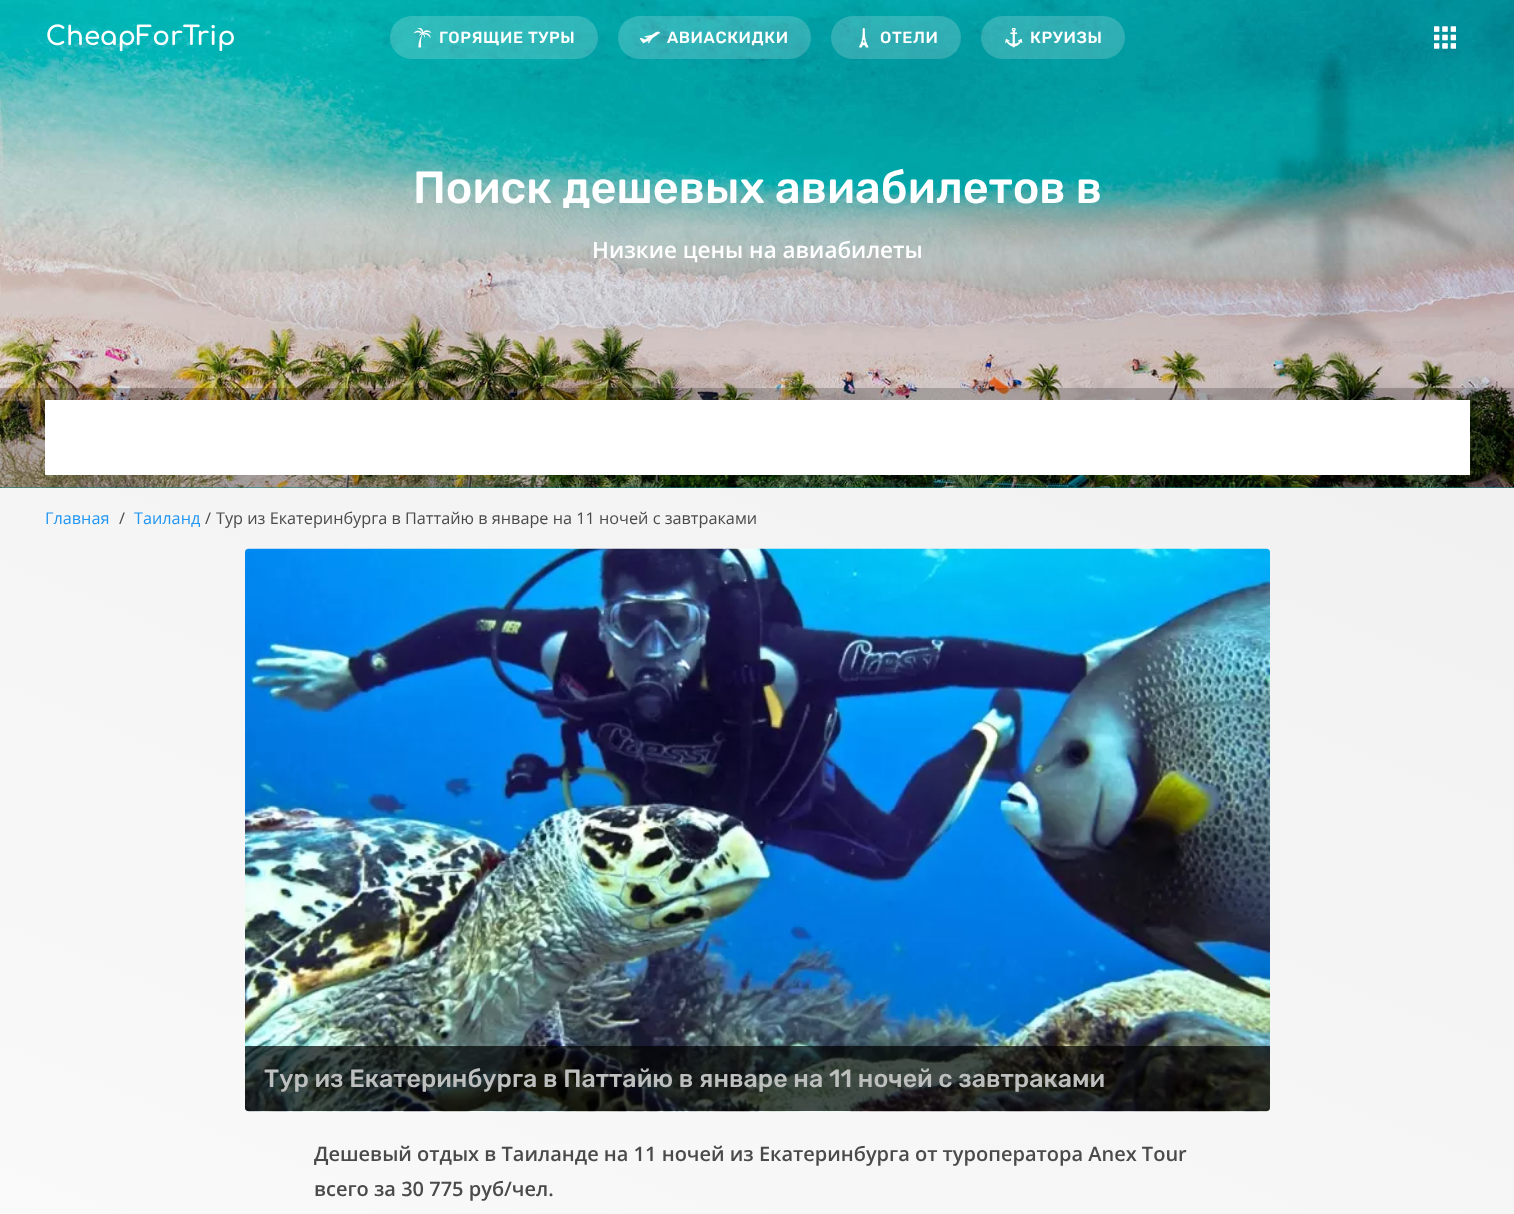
async function draw(canvas) {
  canvas.width = 1514
  canvas.height = 1214
  const ctx = canvas.getContext('2d')
  ctx.miterLimit = 4
  ctx.fontKerning = 'normal'
  async function loadImage(src) {
    const img = new Image()
    img.src = src
    await img.decode()
    return img
  }
  let gradient

  ctx.fillStyle = '#fff'
  ctx.fillRect(0, 0, 1514, 1214)
  gradient = ctx.createLinearGradient(-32, 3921, 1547, 13)
  gradient.addColorStop(0.4, '#fff')
  gradient.addColorStop(1, '#eee')
  ctx.fillStyle = gradient
  ctx.fillRect(0, 488, 1514, 726)
  ctx.fillStyle = '#05aba4'
  ctx.fillRect(0, 487, 1514, 1)
  ctx.drawImage(await loadImage('image0.png'), 0, 0, 1514, 488)
  ctx.drawImage(await loadImage('image1.png'), 47, 24, 187, 27)
  ctx.fillStyle = '#ffffff30'
  ctx.beginPath()
  ctx.roundRect(390, 16, 208, 43, 21.5)
  ctx.fill()
  ctx.drawImage(await loadImage('image2.png'), 413, 28, 19, 20)
  ctx.letterSpacing = '0.6px'
  ctx.font = '500 16.25px Rubik'
  ctx.fillStyle = '#fff'
  ctx.fillText('ГОРЯЩИЕ ТУРЫ', 439, 43)
  ctx.fillStyle = '#ffffff30'
  ctx.beginPath()
  ctx.roundRect(618, 16, 193, 43, 21.5)
  ctx.fill()
  ctx.drawImage(await loadImage('image3.png'), 640, 31, 20, 13)
  ctx.fillStyle = '#fff'
  ctx.fillText('АВИАСКИДКИ', 667, 43)
  ctx.fillStyle = '#ffffff30'
  ctx.beginPath()
  ctx.roundRect(831, 16, 130, 43, 21.5)
  ctx.fill()
  ctx.drawImage(await loadImage('image4.png'), 859, 28, 10, 20)
  ctx.fillStyle = '#fff'
  ctx.fillText('ОТЕЛИ', 880, 43)
  ctx.fillStyle = '#ffffff30'
  ctx.beginPath()
  ctx.roundRect(981, 16, 144, 43, 21.5)
  ctx.fill()
  ctx.drawImage(await loadImage('image5.png'), 1005, 28, 18, 20)
  ctx.fillStyle = '#fff'
  ctx.fillText('КРУИЗЫ', 1030, 43)
  ctx.drawImage(await loadImage('image6.png'), 1434, 26, 22, 23)
  ctx.letterSpacing = '0px'
  ctx.font = '500 45px Rubik'
  ctx.fillText('Поиск дешевых авиабилетов в', 413, 203)
  ctx.font = '600 22.5px Open Sans'
  ctx.fillText('Низкие цены на авиабилеты', 592, 258)
  ctx.drawImage(await loadImage('image7.png'), 1189, 53, 287, 300)
  ctx.fillStyle = '#00000033'
  ctx.fillRect(0, 388, 1514, 100)
  ctx.fillStyle = '#fff'
  ctx.fillRect(45, 400, 1425, 75)
  ctx.font = '16.25px Open Sans'
  ctx.fillStyle = '#2196f3'
  ctx.fillText('Главная', 45, 524)
  ctx.fillStyle = '#4a4a4a'
  ctx.fillText('/', 119, 524)
  ctx.fillStyle = '#2196f3'
  ctx.fillText('Таиланд', 134, 524)
  ctx.fillStyle = '#4a4a4a'
  ctx.fillText('/', 205, 524)
  ctx.fillText('Тур из Екатеринбурга в Паттайю в январе на 11 ночей с завтраками', 216, 524)
  ctx.drawImage(await loadImage('image8.png'), 245, 548, 1025, 564)
  ctx.fillStyle = '#000000b3'
  ctx.beginPath()
  ctx.roundRect(245, 1046, 1025, 65, [0, 0, 4, 4])
  ctx.fill()
  ctx.font = '500 25px Rubik'
  ctx.fillStyle = '#bdbfbe'
  ctx.fillText('Тур из Екатеринбурга в Паттайю в январе на 11 ночей с завтраками', 264, 1087)
  ctx.font = '600 20px Open Sans'
  ctx.fillStyle = '#4a4a4a'
  ctx.fillText('Дешевый отдых в Таиланде на 11 ночей из Екатеринбурга от туроператора Anex Tour', 314, 1161)
  ctx.fillText('всего за 30 775 руб/чел.', 314, 1196)
}

draw(document.querySelector('canvas'))
